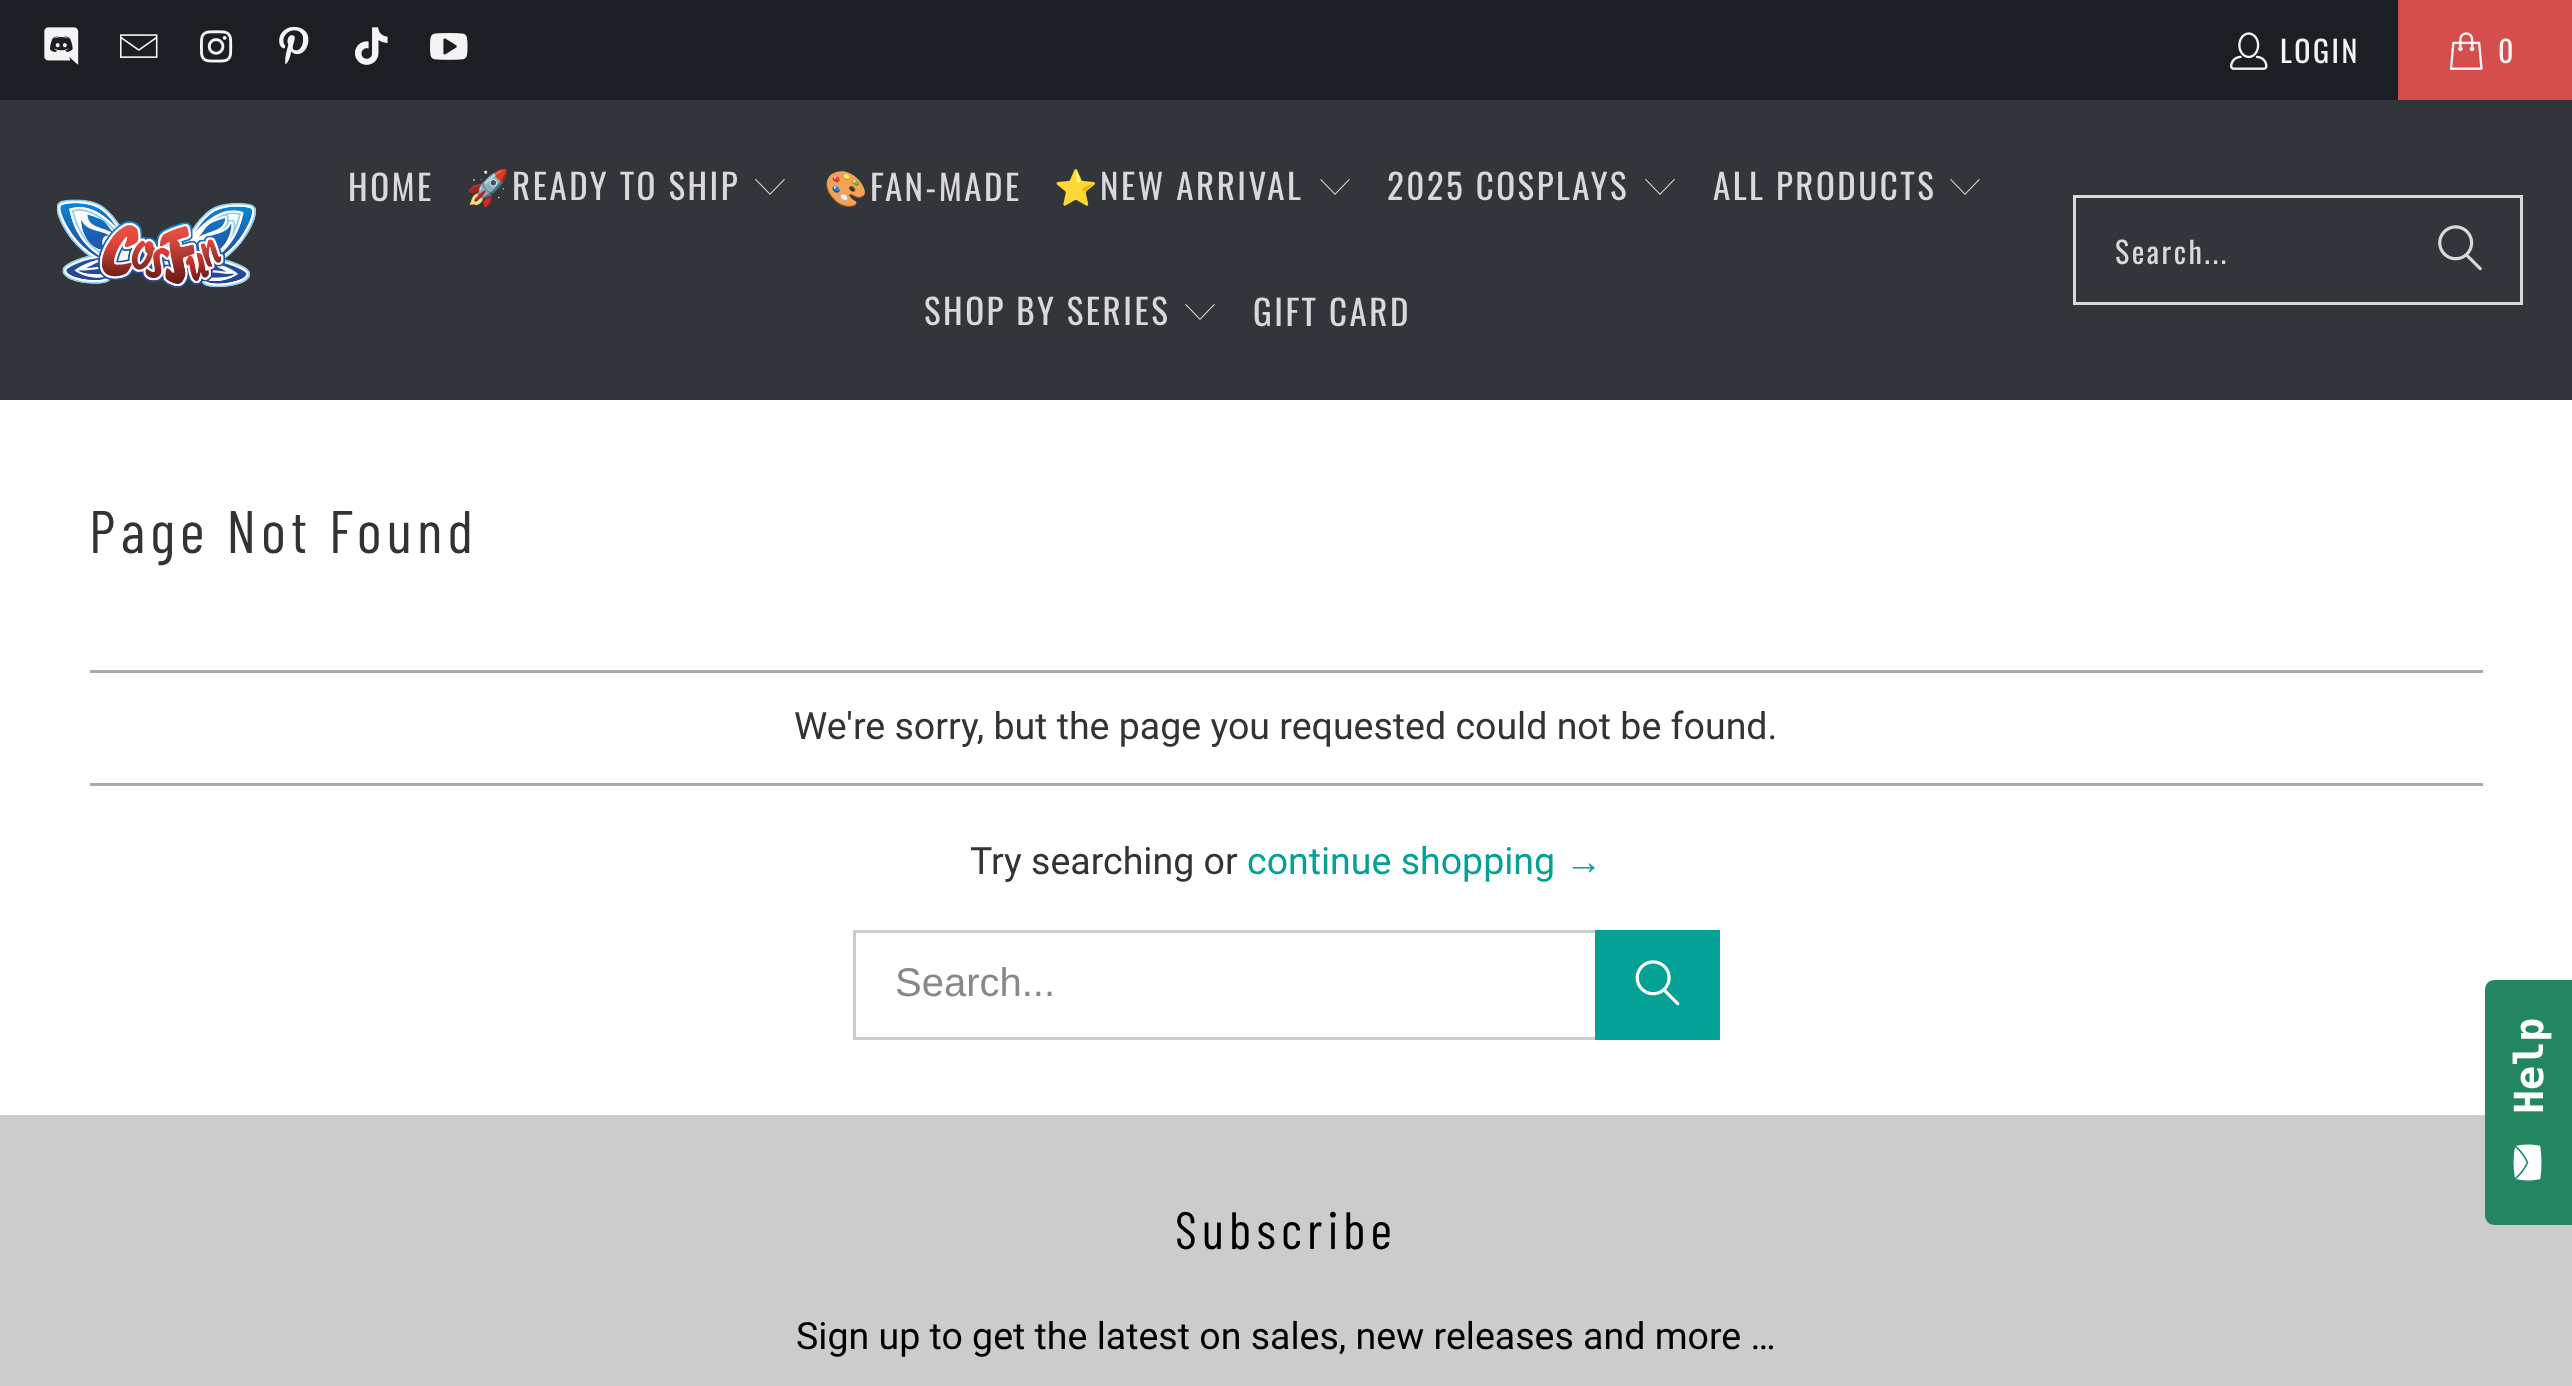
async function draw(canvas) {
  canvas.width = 2572
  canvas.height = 1386
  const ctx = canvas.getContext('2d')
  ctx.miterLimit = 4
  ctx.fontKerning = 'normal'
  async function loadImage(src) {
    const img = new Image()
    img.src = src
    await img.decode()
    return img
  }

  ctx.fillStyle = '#fff'
  ctx.fillRect(0, 0, 2572, 1386)
  ctx.fillStyle = '#1b1f23'
  ctx.fillRect(0, 0, 2398, 100)
  ctx.drawImage(await loadImage('image0.png'), 44, 27, 35, 38)
  ctx.drawImage(await loadImage('image1.png'), 120, 34, 38, 24)
  ctx.drawImage(await loadImage('image2.png'), 200, 30, 33, 33)
  ctx.drawImage(await loadImage('image3.png'), 279, 26, 30, 39)
  ctx.drawImage(await loadImage('image4.png'), 355, 27, 33, 38)
  ctx.drawImage(await loadImage('image5.png'), 430, 33, 38, 27)
  ctx.drawImage(await loadImage('image6.png'), 2230, 32, 38, 38)
  ctx.letterSpacing = '2.5px'
  ctx.font = '30px Oswald'
  ctx.fillStyle = '#f4f4f4'
  ctx.fillText('LOGIN', 2280, 63)
  ctx.fillStyle = '#d54d4d'
  ctx.fillRect(2398, 0, 174, 100)
  ctx.drawImage(await loadImage('image7.png'), 2449, 32, 34, 38)
  ctx.fillStyle = '#f4f4f4'
  ctx.fillText('0', 2498, 63)
  ctx.fillStyle = '#323539'
  ctx.fillRect(0, 100, 2572, 300)
  ctx.drawImage(await loadImage('image8.png'), 56, 199, 201, 89)
  ctx.font = '35px Oswald'
  ctx.fillStyle = '#d9d9d9'
  ctx.fillText('HOME', 348, 201)
  ctx.font = '35px Noto Color Emoji'
  ctx.fillText('🚀', 466, 200)
  ctx.font = '35px Oswald'
  ctx.fillText('READY TO SHIP', 512, 200)
  ctx.beginPath()
  ctx.moveTo(770, 195)
  ctx.lineTo(755, 179.5)
  ctx.lineTo(756, 179)
  ctx.lineTo(770, 193.5)
  ctx.lineTo(784, 179)
  ctx.lineTo(785, 179.5)
  ctx.closePath()
  ctx.fill()
  ctx.font = '35px Noto Color Emoji'
  ctx.fillText('🎨', 824, 201)
  ctx.font = '35px Oswald'
  ctx.fillText('FAN-MADE', 870, 201)
  ctx.font = '35px Noto Color Emoji'
  ctx.fillText('⭐', 1054, 200)
  ctx.font = '35px Oswald'
  ctx.fillText('NEW ARRIVAL', 1100, 200)
  ctx.beginPath()
  ctx.moveTo(1335, 195)
  ctx.lineTo(1320, 179.5)
  ctx.lineTo(1321, 179)
  ctx.lineTo(1335, 193.5)
  ctx.lineTo(1349, 179)
  ctx.lineTo(1350, 179.5)
  ctx.closePath()
  ctx.fill()
  ctx.fillText('2025 COSPLAYS', 1387, 200)
  ctx.beginPath()
  ctx.moveTo(1660, 195)
  ctx.lineTo(1645, 179.5)
  ctx.lineTo(1646, 179)
  ctx.lineTo(1660, 193.5)
  ctx.lineTo(1674, 179)
  ctx.lineTo(1675, 179.5)
  ctx.closePath()
  ctx.fill()
  ctx.fillText('ALL PRODUCTS', 1713, 200)
  ctx.beginPath()
  ctx.moveTo(1965, 195)
  ctx.lineTo(1950, 179.5)
  ctx.lineTo(1951, 179)
  ctx.lineTo(1965, 193.5)
  ctx.lineTo(1979, 179)
  ctx.lineTo(1980, 179.5)
  ctx.closePath()
  ctx.fill()
  ctx.fillText('SHOP BY SERIES', 924, 325)
  ctx.beginPath()
  ctx.moveTo(1200, 320)
  ctx.lineTo(1185, 304.5)
  ctx.lineTo(1186, 304)
  ctx.lineTo(1200, 318.5)
  ctx.lineTo(1214, 304)
  ctx.lineTo(1215, 304.5)
  ctx.closePath()
  ctx.fill()
  ctx.fillText('GIFT CARD', 1253, 326)
  ctx.strokeStyle = '#d9d9d9'
  ctx.lineWidth = 3
  ctx.strokeRect(2074.5, 196.5, 447, 107)
  ctx.font = '30px Oswald'
  ctx.fillText('Search...', 2115, 264)
  ctx.drawImage(await loadImage('image9.png'), 2438, 225, 44, 46)
  ctx.letterSpacing = '5px'
  ctx.font = '60px Barlow Condensed'
  ctx.fillStyle = '#333'
  ctx.fillText('Page Not Found', 89, 553)
  ctx.fillStyle = '#aaa'
  ctx.fillRect(90, 670, 2393, 3)
  ctx.fillRect(90, 783, 2393, 3)
  ctx.letterSpacing = '0px'
  ctx.font = '37.5px Roboto'
  ctx.fillStyle = '#333'
  ctx.fillText('We\'re sorry, but the page you requested could not be found.', 794, 739)
  ctx.fillText('Try searching or', 970, 874)
  ctx.fillStyle = '#03a196'
  ctx.fillText('continue shopping', 1247, 874)
  ctx.font = '37.5px Liberation Sans'
  ctx.fillText('→', 1565, 874)
  ctx.strokeStyle = '#ccc'
  ctx.strokeRect(854.5, 931.5, 864, 107)
  ctx.font = '40px Liberation Sans'
  ctx.fillStyle = '#888'
  ctx.fillText('Search...', 895, 996)
  ctx.fillStyle = '#03a196'
  ctx.fillRect(1595, 930, 125, 110)
  ctx.drawImage(await loadImage('image10.png'), 1635, 960, 45, 46)
  ctx.fillStyle = '#ccc'
  ctx.fillRect(0, 1115, 2572, 271)
  ctx.letterSpacing = '5px'
  ctx.font = '52.5px Barlow Condensed'
  ctx.fillStyle = '#000'
  ctx.fillText('Subscribe', 1175, 1249)
  ctx.letterSpacing = '0px'
  ctx.font = '37.5px Roboto'
  ctx.fillText('Sign up to get the latest on sales, new releases and more …', 796, 1349)
  ctx.fillStyle = '#238660'
  ctx.beginPath()
  ctx.moveTo(2485, 1215)
  ctx.lineTo(2485, 990)
  ctx.bezierCurveTo(2485, 984, 2489, 980, 2495, 980)
  ctx.lineTo(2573, 980)
  ctx.lineTo(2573, 1225)
  ctx.lineTo(2495, 1225)
  ctx.bezierCurveTo(2489, 1225, 2485, 1221, 2485, 1215)
  ctx.closePath()
  ctx.fill()
  ctx.font = 'bold 40px DejaVu Sans Mono'
  ctx.fillStyle = '#fff'
  ctx.save()
  ctx.translate(2543, 1114)
  ctx.rotate(-90 * Math.PI / 180)
  ctx.fillText('Help', 0, 0)
  ctx.restore()
  ctx.drawImage(await loadImage('image11.png'), 2513, 1144, 29, 37)
}

draw(document.querySelector('canvas'))
